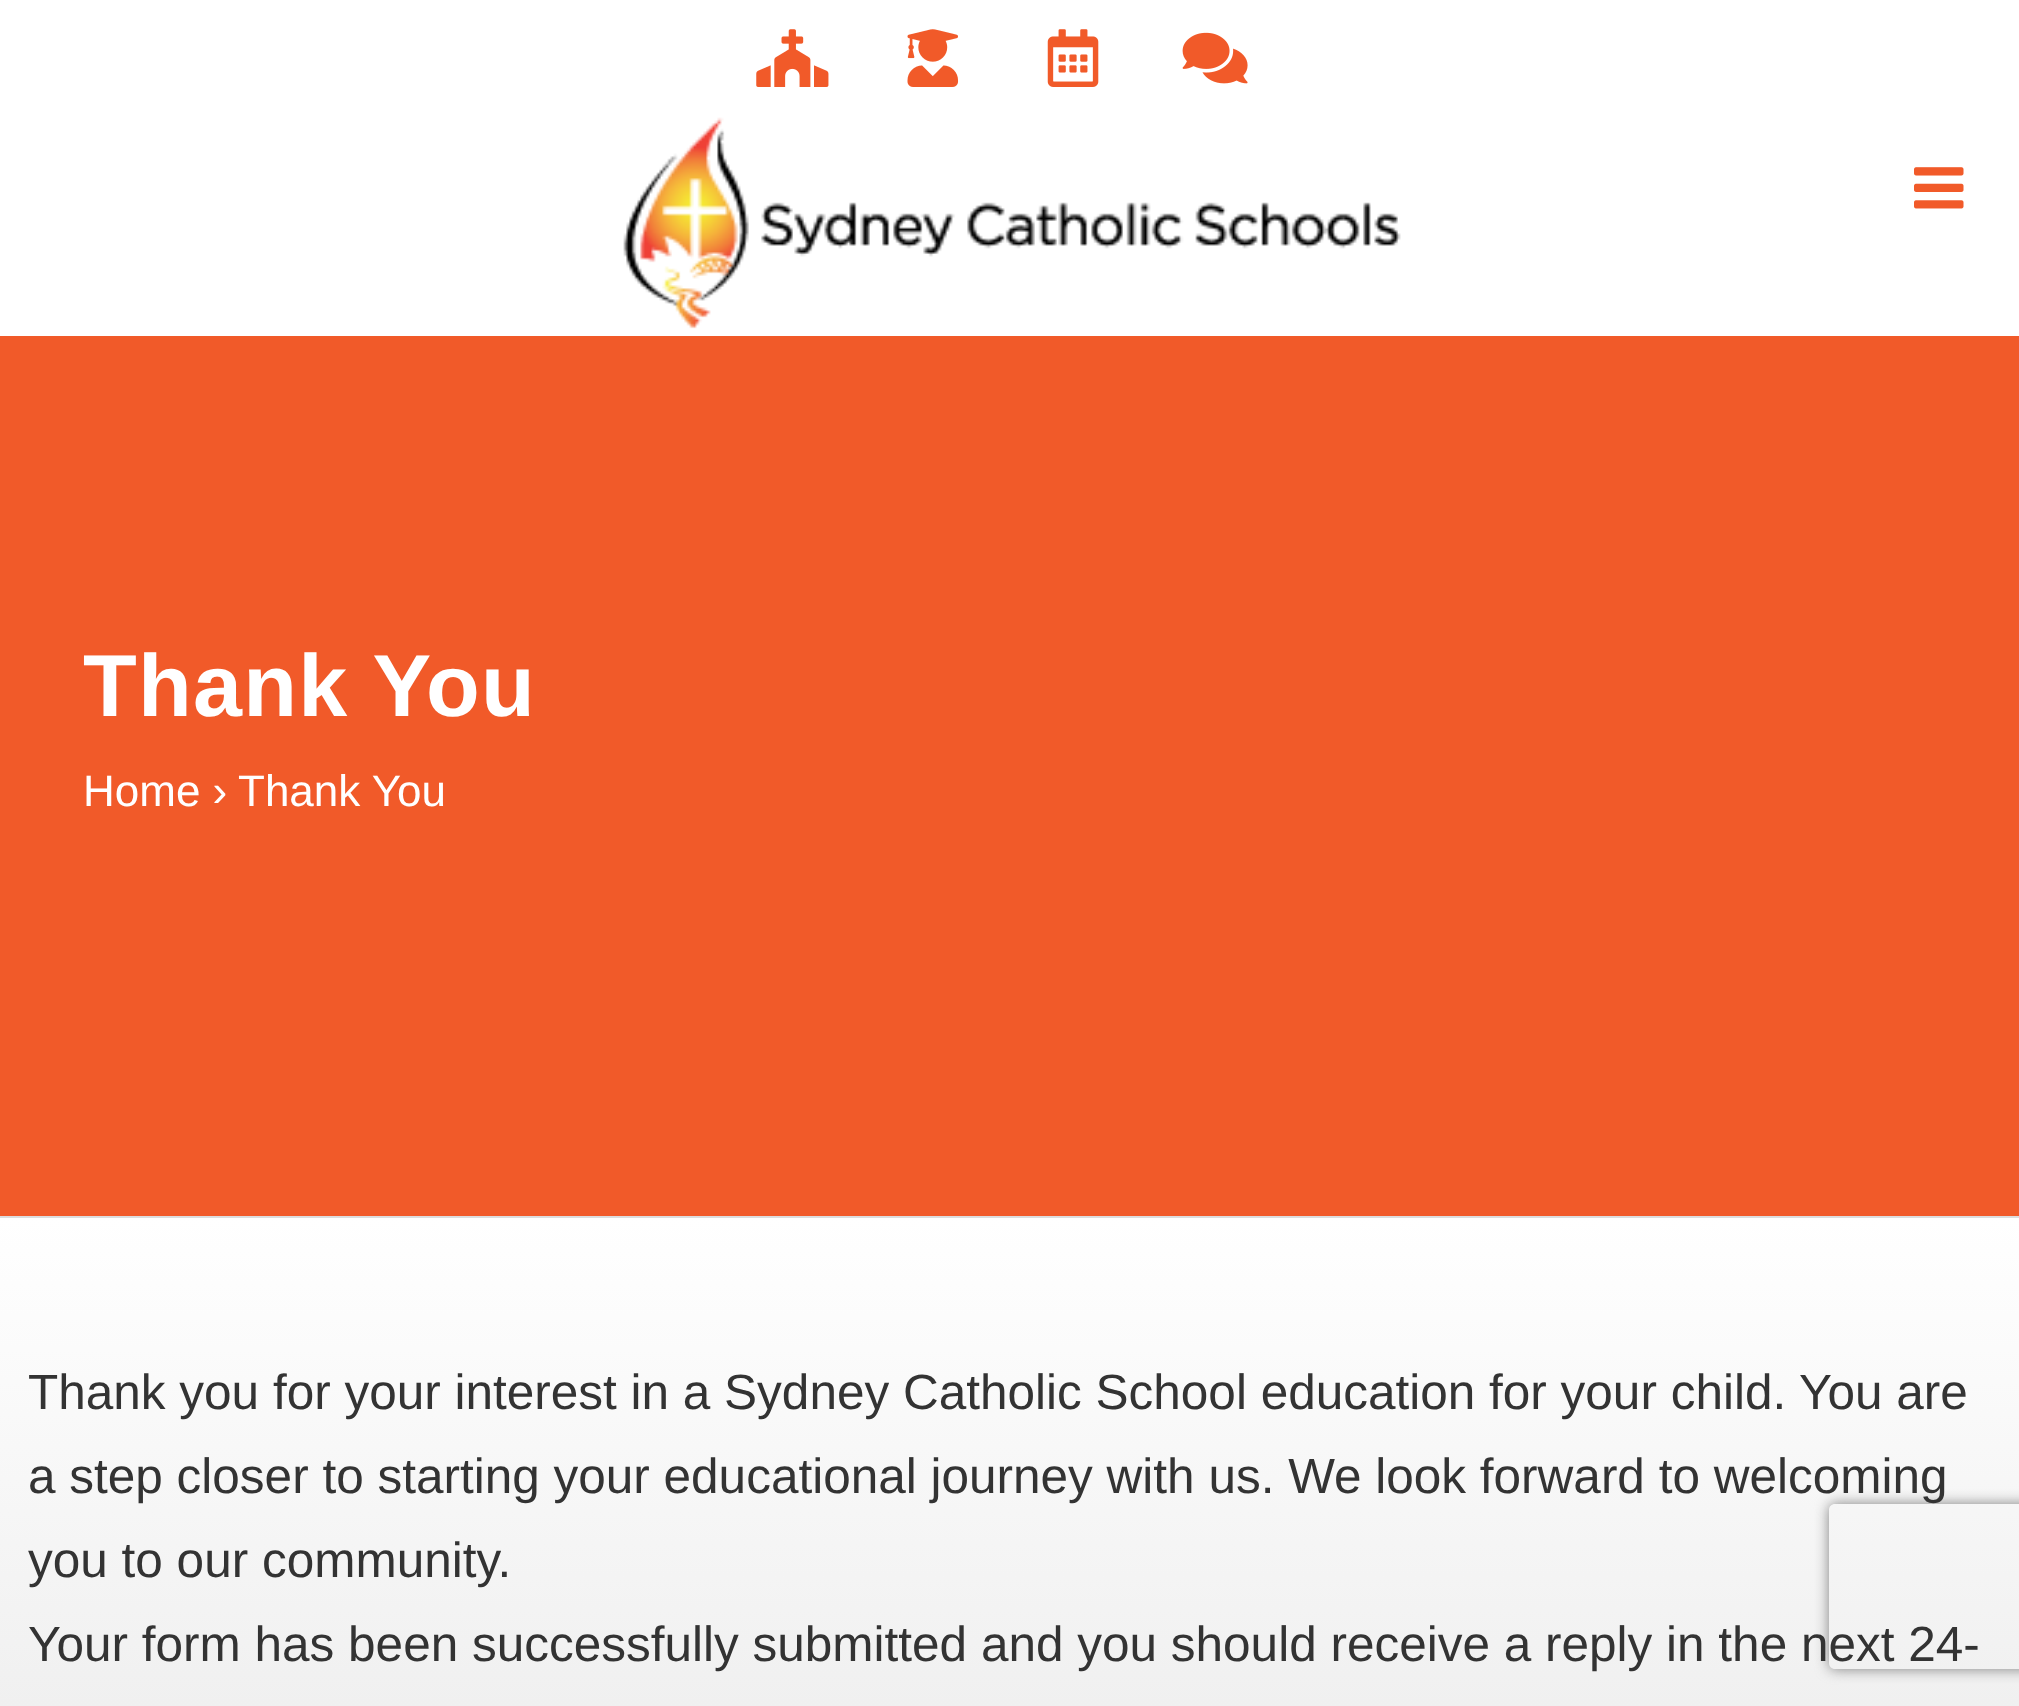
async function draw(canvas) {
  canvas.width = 2019
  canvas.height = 1706
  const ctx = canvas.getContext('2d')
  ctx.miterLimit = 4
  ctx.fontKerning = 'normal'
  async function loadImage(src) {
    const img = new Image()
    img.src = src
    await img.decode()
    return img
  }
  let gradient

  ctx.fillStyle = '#f15a29'
  ctx.fillRect(0, 0, 2019, 1706)
  ctx.fillStyle = '#fff'
  ctx.fillRect(0, 0, 2019, 336)
  ctx.drawImage(await loadImage('image0.png'), 756, 29, 73, 58)
  ctx.drawImage(await loadImage('image1.png'), 907, 29, 52, 58)
  ctx.drawImage(await loadImage('image2.png'), 1047, 29, 52, 58)
  ctx.drawImage(await loadImage('image3.png'), 1182, 32, 66, 52)
  ctx.drawImage(await loadImage('image4.png'), 623, 117, 778, 212)
  ctx.drawImage(await loadImage('image5.png'), 1914, 167, 50, 42)
  ctx.fillStyle = '#ddd'
  ctx.fillRect(0, 1216, 2019, 2)
  ctx.letterSpacing = '1.25px'
  ctx.font = 'bold 88px Liberation Sans'
  ctx.fillStyle = '#fff'
  ctx.fillText('Thank You', 83, 716)
  ctx.letterSpacing = '0px'
  ctx.font = '44px Liberation Sans'
  ctx.fillText('Home ›', 83, 806)
  ctx.fillText('Thank You', 238, 806)
  gradient = ctx.createLinearGradient(1011, 1218, 1011, 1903)
  gradient.addColorStop(0, '#fff')
  gradient.addColorStop(1, '#eaeaea')
  ctx.fillStyle = gradient
  ctx.fillRect(0, 1218, 2019, 488)
  ctx.font = '49.5px Liberation Sans'
  ctx.fillStyle = '#333'
  ctx.fillText('Thank you for your interest in a Sydney Catholic School education for your child. You are', 28, 1409)
  ctx.save()
  ctx.beginPath()
  ctx.moveTo(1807, 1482)
  ctx.lineTo(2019, 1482)
  ctx.lineTo(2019, 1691)
  ctx.lineTo(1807, 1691)
  ctx.closePath()
  ctx.moveTo(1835, 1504)
  ctx.lineTo(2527, 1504)
  ctx.bezierCurveTo(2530.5, 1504, 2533, 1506.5, 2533, 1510)
  ctx.lineTo(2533, 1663)
  ctx.bezierCurveTo(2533, 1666.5, 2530.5, 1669, 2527, 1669)
  ctx.lineTo(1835, 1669)
  ctx.bezierCurveTo(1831.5, 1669, 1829, 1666.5, 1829, 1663)
  ctx.lineTo(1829, 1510)
  ctx.bezierCurveTo(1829, 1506.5, 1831.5, 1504, 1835, 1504)
  ctx.closePath()
  ctx.clip('evenodd')
  ctx.fillStyle = '#808080'
  ctx.filter = 'blur(7px)'
  ctx.beginPath()
  ctx.roundRect(1829, 1504, 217, 165, 6)
  ctx.fill()
  ctx.filter = 'none'
  ctx.restore()
  ctx.fillText('a step closer to starting your educational journey with us. We look forward to welcoming', 28, 1493)
  ctx.fillText('you to our community.', 28, 1577)
  ctx.fillText('Your form has been successfully submitted and you should receive a reply in the next 24-', 28, 1661)
}

draw(document.querySelector('canvas'))
